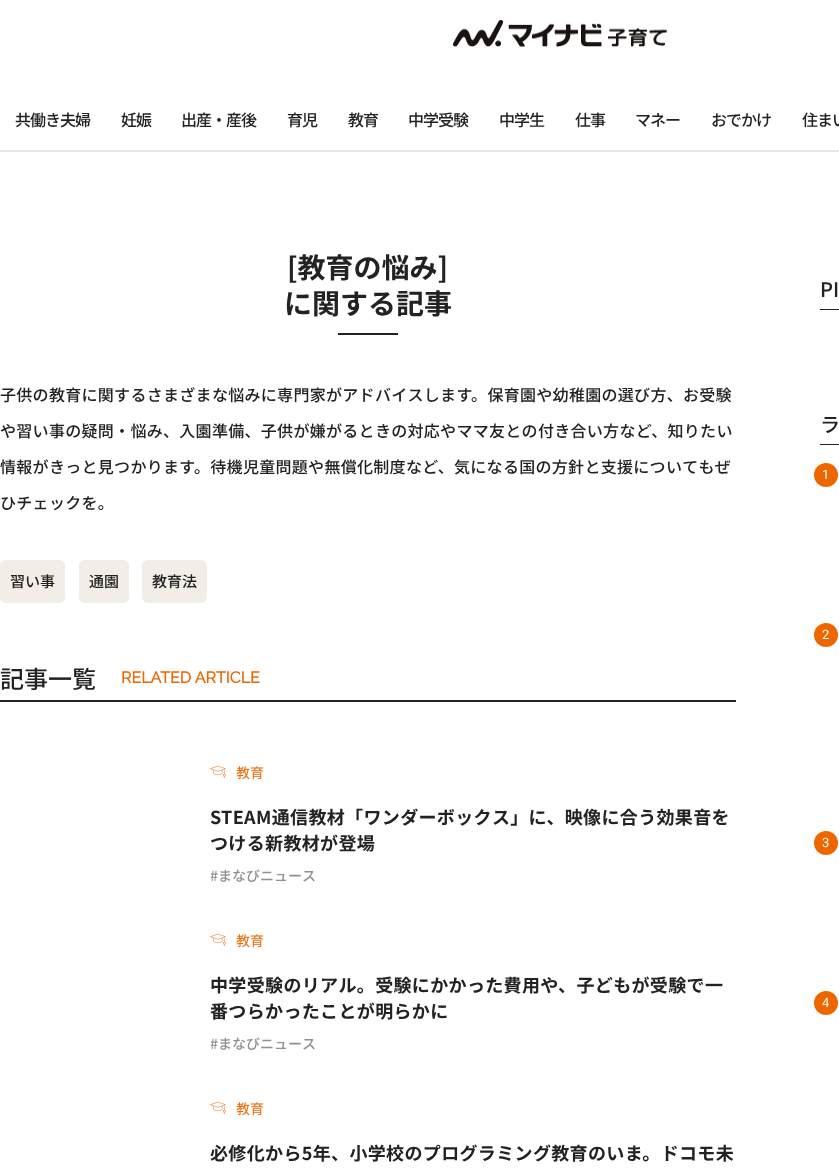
async function draw(canvas) {
  canvas.width = 839
  canvas.height = 1174
  const ctx = canvas.getContext('2d')
  ctx.miterLimit = 4
  ctx.fontKerning = 'normal'
  async function loadImage(src) {
    const img = new Image()
    img.src = src
    await img.decode()
    return img
  }

  ctx.fillStyle = '#fff'
  ctx.fillRect(0, 0, 839, 1174)
  ctx.drawImage(await loadImage('image0.png'), 453, 20, 214, 27)
  ctx.fillStyle = '#e5e5e5'
  ctx.fillRect(0, 150, 839, 2)
  ctx.letterSpacing = '-1px'
  ctx.font = '500 16px Noto Sans JP'
  ctx.fillStyle = '#222'
  ctx.fillText('共働き夫婦', 15, 126)
  ctx.fillText('妊娠', 121, 126)
  ctx.fillText('出産・産後', 181, 126)
  ctx.fillText('育児', 287, 126)
  ctx.fillText('教育', 348, 126)
  ctx.fillText('中学受験', 408, 126)
  ctx.fillText('中学生', 499, 126)
  ctx.fillText('仕事', 575, 126)
  ctx.fillText('マネー', 635, 126)
  ctx.fillText('おでかけ', 711, 126)
  ctx.fillText('住まい', 802, 126)
  ctx.letterSpacing = '0px'
  ctx.font = 'bold 28px Noto Sans JP'
  ctx.fillText('[教育の悩み]', 287, 278)
  ctx.fillText('に関する記事', 284, 314)
  ctx.fillRect(338, 333, 60, 2)
  ctx.letterSpacing = '0.3px'
  ctx.font = '500 16px Noto Sans JP'
  ctx.fillText('子供の教育に関するさまざまな悩みに専門家がアドバイスします。保育園や幼稚園の選び方、お受験', 0, 401)
  ctx.fillText('や習い事の疑問・悩み、入園準備、子供が嫌がるときの対応やママ友との付き合い方など、知りたい', 0, 437)
  ctx.fillText('情報がきっと見つかります。待機児童問題や無償化制度など、気になる国の方針と支援についてもぜ', 0, 473)
  ctx.fillText('ひチェックを。', 0, 509)
  ctx.fillStyle = '#f2ede7'
  ctx.beginPath()
  ctx.roundRect(0, 560, 65, 43, 6)
  ctx.fill()
  ctx.letterSpacing = '0px'
  ctx.font = '500 15px Noto Sans JP'
  ctx.fillStyle = '#222'
  ctx.fillText('習い事', 10, 587)
  ctx.fillStyle = '#f2ede7'
  ctx.beginPath()
  ctx.roundRect(79, 560, 50, 43, 6)
  ctx.fill()
  ctx.fillStyle = '#222'
  ctx.fillText('通園', 89, 587)
  ctx.fillStyle = '#f2ede7'
  ctx.beginPath()
  ctx.roundRect(142, 560, 65, 43, 6)
  ctx.fill()
  ctx.fillStyle = '#222'
  ctx.fillText('教育法', 152, 587)
  ctx.fillRect(0, 700, 736, 2)
  ctx.font = '500 24px Noto Sans JP'
  ctx.fillText('記事一覧', 0, 688)
  ctx.font = 'bold 16px Raleway'
  ctx.fillStyle = '#e60'
  ctx.fillText('RELATED ARTICLE', 121, 683)
  ctx.drawImage(await loadImage('image1.png'), 210, 765, 16, 14)
  ctx.font = '14px Noto Sans JP'
  ctx.fillText('教育', 236, 778)
  ctx.letterSpacing = '0.35px'
  ctx.font = 'bold 18px Noto Sans JP'
  ctx.fillStyle = '#222'
  ctx.fillText('STEAM通信教材「ワンダーボックス」に、映像に合う効果音を', 210, 824)
  ctx.fillText('つける新教材が登場', 210, 850)
  ctx.letterSpacing = '0px'
  ctx.font = '500 14px Noto Sans JP'
  ctx.fillStyle = '#909090'
  ctx.fillText('#まなびニュース', 210, 881)
  ctx.drawImage(await loadImage('image1.png'), 210, 933, 16, 14)
  ctx.font = '14px Noto Sans JP'
  ctx.fillStyle = '#e60'
  ctx.fillText('教育', 236, 946)
  ctx.letterSpacing = '0.35px'
  ctx.font = 'bold 18px Noto Sans JP'
  ctx.fillStyle = '#222'
  ctx.fillText('中学受験のリアル。受験にかかった費用や、子どもが受験で一', 210, 992)
  ctx.fillText('番つらかったことが明らかに', 210, 1018)
  ctx.letterSpacing = '0px'
  ctx.font = '500 14px Noto Sans JP'
  ctx.fillStyle = '#909090'
  ctx.fillText('#まなびニュース', 210, 1049)
  ctx.drawImage(await loadImage('image1.png'), 210, 1101, 16, 14)
  ctx.font = '14px Noto Sans JP'
  ctx.fillStyle = '#e60'
  ctx.fillText('教育', 236, 1114)
  ctx.letterSpacing = '0.35px'
  ctx.font = 'bold 18px Noto Sans JP'
  ctx.fillStyle = '#222'
  ctx.fillText('必修化から5年、小学校のプログラミング教育のいま。ドコモ未', 210, 1160)
  ctx.fillRect(820, 309, 19, 1)
  ctx.letterSpacing = '0px'
  ctx.font = '500 20px Noto Sans JP'
  ctx.fillText('PI', 820, 297)
  ctx.fillRect(820, 444, 19, 1)
  ctx.fillText('ラ', 820, 432)
  ctx.fillStyle = '#e60'
  ctx.beginPath()
  ctx.arc(826, 475, 12, 0, 2 * Math.PI)
  ctx.fill()
  ctx.font = '13px Roboto'
  ctx.fillStyle = '#fff'
  ctx.fillText('1', 822, 479)
  ctx.fillStyle = '#e60'
  ctx.beginPath()
  ctx.arc(826, 635, 12, 0, 2 * Math.PI)
  ctx.fill()
  ctx.fillStyle = '#fff'
  ctx.fillText('2', 822, 639)
  ctx.fillStyle = '#e60'
  ctx.beginPath()
  ctx.arc(826, 843, 12, 0, 2 * Math.PI)
  ctx.fill()
  ctx.fillStyle = '#fff'
  ctx.fillText('3', 822, 847)
  ctx.fillStyle = '#e60'
  ctx.beginPath()
  ctx.arc(826, 1003, 12, 0, 2 * Math.PI)
  ctx.fill()
  ctx.fillStyle = '#fff'
  ctx.fillText('4', 822, 1007)
}

draw(document.querySelector('canvas'))
